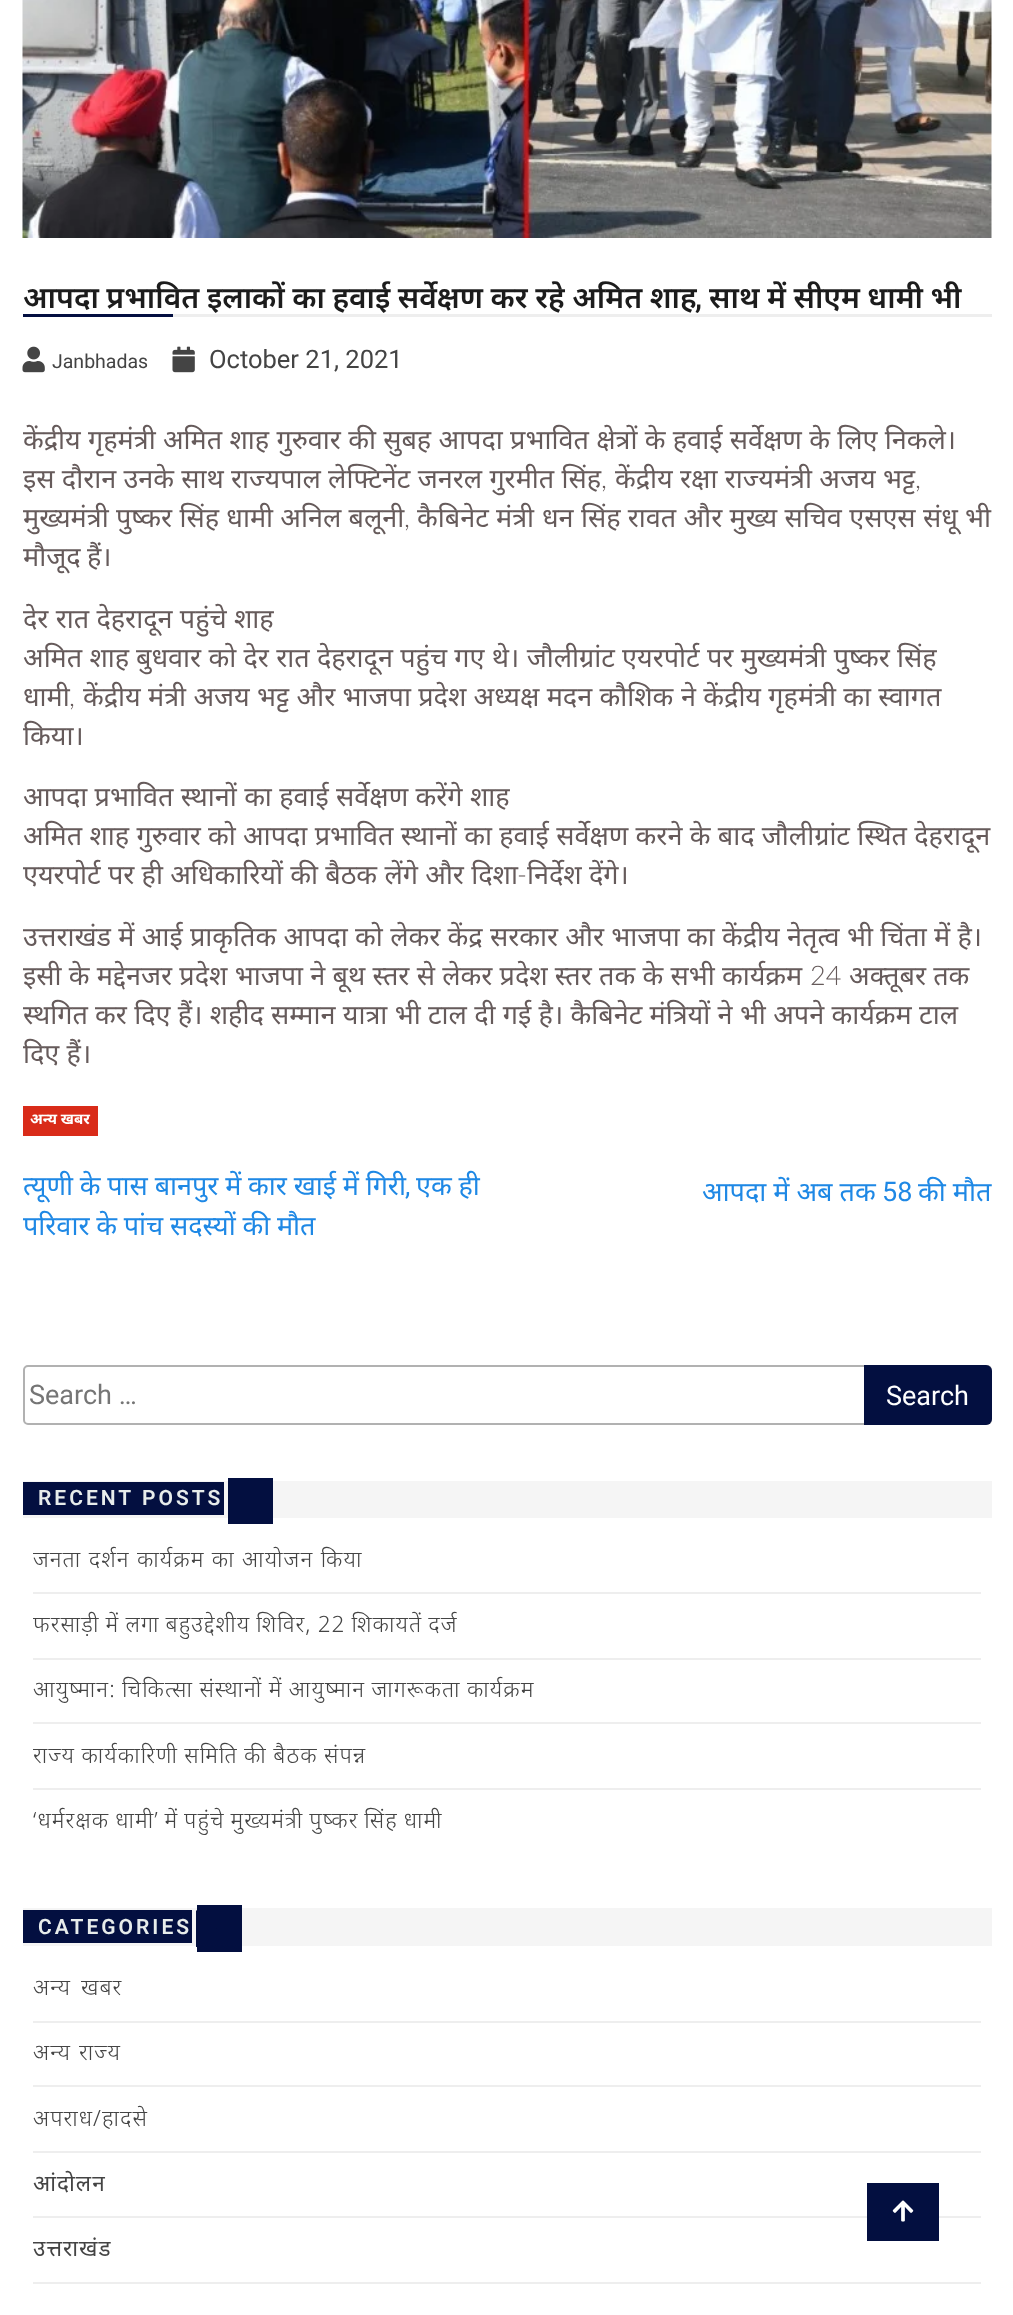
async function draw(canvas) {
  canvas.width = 1013
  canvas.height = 2315
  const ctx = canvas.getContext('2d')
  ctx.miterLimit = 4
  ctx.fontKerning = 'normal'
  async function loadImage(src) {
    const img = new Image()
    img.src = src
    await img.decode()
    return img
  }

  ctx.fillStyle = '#fff'
  ctx.fillRect(0, 0, 1013, 2315)
  ctx.drawImage(await loadImage('image0.png'), 22, 0, 970, 238)
  ctx.fillStyle = '#eee'
  ctx.fillRect(173, 314, 819, 3)
  ctx.wordSpacing = '-0.25px'
  ctx.font = '600 30px Noto Sans'
  ctx.fillStyle = '#1c1c1c'
  ctx.fillText('आपदा प्रभावित इलाकों का हवाई सर्वेक्षण कर रहे अमित शाह', 23, 308)
  ctx.wordSpacing = '0px'
  ctx.font = '600 30px Roboto'
  ctx.fillText(',', 695, 308)
  ctx.wordSpacing = '-0.25px'
  ctx.font = '600 30px Noto Sans'
  ctx.fillText('साथ में सीएम धामी भी', 709, 308)
  ctx.fillStyle = '#030f40'
  ctx.fillRect(23, 314, 150, 3)
  ctx.drawImage(await loadImage('image1.png'), 22, 346, 23, 27)
  ctx.wordSpacing = '0px'
  ctx.font = '19.5px Roboto'
  ctx.fillStyle = '#444'
  ctx.fillText('Janbhadas', 52, 368)
  ctx.drawImage(await loadImage('image2.png'), 172, 346, 23, 27)
  ctx.font = '25.5px Roboto'
  ctx.fillText('October 21, 2021', 209, 368)
  ctx.wordSpacing = '0.3px'
  ctx.font = '27px Noto Sans'
  ctx.fillStyle = '#665b5b'
  ctx.fillText('केंद्रीय गृहमंत्री अमित शाह गुरुवार की सुबह आपदा प्रभावित क्षेत्रों के हवाई सर्वेक्षण के लिए निकले।', 23, 449)
  ctx.fillText('इस दौरान उनके साथ', 23, 488)
  ctx.fillText('राज्यपाल लेफ्टिनेंट जनरल गुरमीत सिंह', 231, 488)
  ctx.wordSpacing = '0px'
  ctx.font = '300 27px Lato'
  ctx.fillText(',', 601, 488)
  ctx.wordSpacing = '0.3px'
  ctx.font = '27px Noto Sans'
  ctx.fillText('केंद्रीय रक्षा राज्यमंत्री अजय भट्ट', 615, 488)
  ctx.wordSpacing = '0px'
  ctx.font = '300 27px Lato'
  ctx.fillText(',', 915, 488)
  ctx.wordSpacing = '0.3px'
  ctx.font = '27px Noto Sans'
  ctx.fillText('मुख्यमंत्री पुष्कर सिंह धामी अनिल बलूनी', 23, 527)
  ctx.wordSpacing = '0px'
  ctx.font = '300 27px Lato'
  ctx.fillText(',', 404, 527)
  ctx.wordSpacing = '0.3px'
  ctx.font = '27px Noto Sans'
  ctx.fillText('कैबिनेट मंत्री', 417, 527)
  ctx.fillText('धन सिंह रावत और मुख्य सचिव एसएस संधू भी', 542, 527)
  ctx.wordSpacing = '0px'
  ctx.fillText('मौजूद', 23, 566)
  ctx.fillText('हैं।', 87, 566)
  ctx.wordSpacing = '0.3px'
  ctx.fillText('देर रात देहरादून पहुंचे शाह', 23, 628)
  ctx.fillText('अमित शाह', 23, 667)
  ctx.fillText('बुधवार को देर रात देहरादून पहुंच गए थे। जौलीग्रांट एयरपोर्ट पर मुख्यमंत्री पुष्कर सिंह', 136, 667)
  ctx.wordSpacing = '0px'
  ctx.fillText('धामी', 23, 706)
  ctx.font = '300 27px Lato'
  ctx.fillText(',', 69, 706)
  ctx.wordSpacing = '0.3px'
  ctx.font = '27px Noto Sans'
  ctx.fillText('केंद्रीय मंत्री अजय भट्ट और भाजपा प्रदेश अध्यक्ष मदन कौशिक', 83, 706)
  ctx.fillText('ने केंद्रीय गृहमंत्री का स्वागत', 681, 706)
  ctx.wordSpacing = '0px'
  ctx.fillText('किया।', 23, 745)
  ctx.wordSpacing = '0.3px'
  ctx.fillText('आपदा प्रभावित स्थानों का हवाई सर्वेक्षण करेंगे', 23, 806)
  ctx.wordSpacing = '0px'
  ctx.fillText('शाह', 470, 806)
  ctx.wordSpacing = '0.3px'
  ctx.fillText('अमित शाह गुरुवार', 23, 845)
  ctx.fillText('को आपदा प्रभावित स्थानों का हवाई सर्वेक्षण करने के बाद जौलीग्रांट स्थित देहरादून', 208, 845)
  ctx.fillText('एयरपोर्ट पर ही अधिकारियों की बैठक लेंगे और दिशा', 23, 884)
  ctx.wordSpacing = '0px'
  ctx.font = '300 27px Lato'
  ctx.fillText('-', 517, 884)
  ctx.wordSpacing = '0.3px'
  ctx.font = '27px Noto Sans'
  ctx.fillText('निर्देश देंगे।', 527, 884)
  ctx.fillText('उत्तराखंड में आई प्राकृतिक आपदा को लेकर केंद्र सरकार और भाजपा का केंद्रीय नेतृत्व भी चिंता में है।', 23, 946)
  ctx.wordSpacing = '0.25px'
  ctx.fillText('इसी के मद्देनजर प्रदेश भाजपा ने बूथ स्तर से लेकर प्रदेश स्तर तक के सभी कार्यक्रम', 23, 985)
  ctx.wordSpacing = '0px'
  ctx.font = '300 27px Lato'
  ctx.fillText('24', 810, 985)
  ctx.wordSpacing = '0.25px'
  ctx.font = '27px Noto Sans'
  ctx.fillText('अक्तूबर तक', 849, 985)
  ctx.wordSpacing = '0.3px'
  ctx.fillText('स्थगित कर दिए हैं। शहीद सम्मान यात्रा भी टाल दी गई है। कैबिनेट मंत्रियों ने भी अपने कार्यक्रम टाल', 23, 1024)
  ctx.fillText('दिए हैं।', 23, 1063)
  ctx.fillStyle = '#d92b19'
  ctx.fillRect(23, 1106, 75, 30)
  ctx.wordSpacing = '0px'
  ctx.font = 'bold 15px Noto Sans'
  ctx.fillStyle = '#fff'
  ctx.fillText('अन्य खबर', 30, 1124)
  ctx.wordSpacing = '-0.25px'
  ctx.font = '27px Noto Sans'
  ctx.fillStyle = '#1e88e5'
  ctx.fillText('त्यूणी के पास बानपुर में कार खाई में गिरी', 23, 1195)
  ctx.wordSpacing = '0px'
  ctx.font = '27px Roboto'
  ctx.fillText(',', 405, 1195)
  ctx.wordSpacing = '-0.25px'
  ctx.font = '27px Noto Sans'
  ctx.fillText('एक ही', 416, 1195)
  ctx.fillText('परिवार के पांच सदस्यों की मौत', 23, 1235)
  ctx.wordSpacing = '0px'
  ctx.fillText('आपदा में अब तक', 702, 1201)
  ctx.font = '27px Roboto'
  ctx.fillText('58', 882, 1201)
  ctx.font = '27px Noto Sans'
  ctx.fillText('की मौत', 918, 1201)
  ctx.beginPath()
  ctx.roundRect(24, 1366, 967, 58, 4)
  ctx.strokeStyle = '#b1b1b1'
  ctx.lineWidth = 2
  ctx.stroke()
  ctx.font = '27px Roboto'
  ctx.fillStyle = '#757575'
  ctx.fillText('Search …', 29, 1404)
  ctx.fillStyle = '#030f40'
  ctx.beginPath()
  ctx.roundRect(864, 1365, 128, 60, [0, 6, 6, 0])
  ctx.fill()
  ctx.fillStyle = '#fff'
  ctx.fillText('Search', 886, 1405)
  ctx.fillStyle = '#f5f5f5'
  ctx.fillRect(23, 1481, 969, 37)
  ctx.fillStyle = '#030f40'
  ctx.fillRect(23, 1482, 201, 33)
  ctx.letterSpacing = '3px'
  ctx.font = '600 21px Roboto'
  ctx.fillStyle = '#e7eceb'
  ctx.fillText('RECENT POSTS', 38, 1505)
  ctx.fillStyle = '#030f40'
  ctx.fillRect(228, 1478, 45, 46)
  ctx.fillStyle = '#eee'
  ctx.fillRect(33, 1592, 948, 2)
  ctx.letterSpacing = '1.05px'
  ctx.wordSpacing = '0.5px'
  ctx.font = '300 22.5px Noto Sans'
  ctx.fillStyle = '#444'
  ctx.fillText('जनता दर्शन कार्यक्रम का आयोजन किया', 33, 1567)
  ctx.fillStyle = '#eee'
  ctx.fillRect(33, 1658, 948, 2)
  ctx.wordSpacing = '-0.75px'
  ctx.fillStyle = '#444'
  ctx.fillText('फरसाड़ी में लगा बहुउद्देशीय शिविर, 22 शिकायतें दर्ज', 33, 1632)
  ctx.fillStyle = '#eee'
  ctx.fillRect(33, 1722, 948, 2)
  ctx.wordSpacing = '-0.5px'
  ctx.fillStyle = '#444'
  ctx.fillText('आयुष्मान: चिकित्सा संस्थानों में आयुष्मान जागरूकता कार्यक्रम', 33, 1697)
  ctx.fillStyle = '#eee'
  ctx.fillRect(33, 1788, 948, 2)
  ctx.fillStyle = '#444'
  ctx.fillText('राज्य कार्यकारिणी समिति की बैठक संपन्न', 33, 1763)
  ctx.wordSpacing = '-1px'
  ctx.fillText('‘धर्मरक्षक धामी’ में पहुंचे मुख्यमंत्री पुष्कर सिंह धामी', 33, 1828)
  ctx.fillStyle = '#f5f5f5'
  ctx.fillRect(23, 1908, 969, 38)
  ctx.fillStyle = '#030f40'
  ctx.fillRect(23, 1910, 169, 33)
  ctx.fillRect(197, 1905, 45, 47)
  ctx.letterSpacing = '3px'
  ctx.wordSpacing = '0px'
  ctx.font = '600 21px Roboto'
  ctx.fillStyle = '#e7eceb'
  ctx.fillText('CATEGORIES', 38, 1934)
  ctx.fillStyle = '#030f40'
  ctx.beginPath()
  ctx.moveTo(237, 1947)
  ctx.lineTo(196, 1947)
  ctx.lineTo(196, 1910)
  ctx.closePath()
  ctx.fill()
  ctx.fillStyle = '#eee'
  ctx.fillRect(33, 2021, 948, 2)
  ctx.letterSpacing = '1.05px'
  ctx.wordSpacing = '3px'
  ctx.font = '300 22.5px Noto Sans'
  ctx.fillStyle = '#444'
  ctx.fillText('अन्य खबर', 33, 1995)
  ctx.fillStyle = '#eee'
  ctx.fillRect(33, 2085, 948, 2)
  ctx.wordSpacing = '1px'
  ctx.fillStyle = '#444'
  ctx.fillText('अन्य राज्य', 33, 2060)
  ctx.fillStyle = '#eee'
  ctx.fillRect(33, 2151, 948, 2)
  ctx.wordSpacing = '0px'
  ctx.fillStyle = '#444'
  ctx.fillText('अपराध/हादसे', 33, 2126)
  ctx.fillStyle = '#eee'
  ctx.fillRect(33, 2216, 948, 2)
  ctx.font = '22.5px Noto Sans'
  ctx.fillStyle = '#444'
  ctx.fillText('आंदोलन', 33, 2191)
  ctx.fillStyle = '#eee'
  ctx.fillRect(33, 2282, 948, 2)
  ctx.fillStyle = '#444'
  ctx.fillText('उत्तराखंड', 33, 2256)
  ctx.fillStyle = '#030f40'
  ctx.fillRect(867, 2183, 72, 58)
  ctx.drawImage(await loadImage('image3.png'), 892, 2200, 22, 22)
}

draw(document.querySelector('canvas'))
